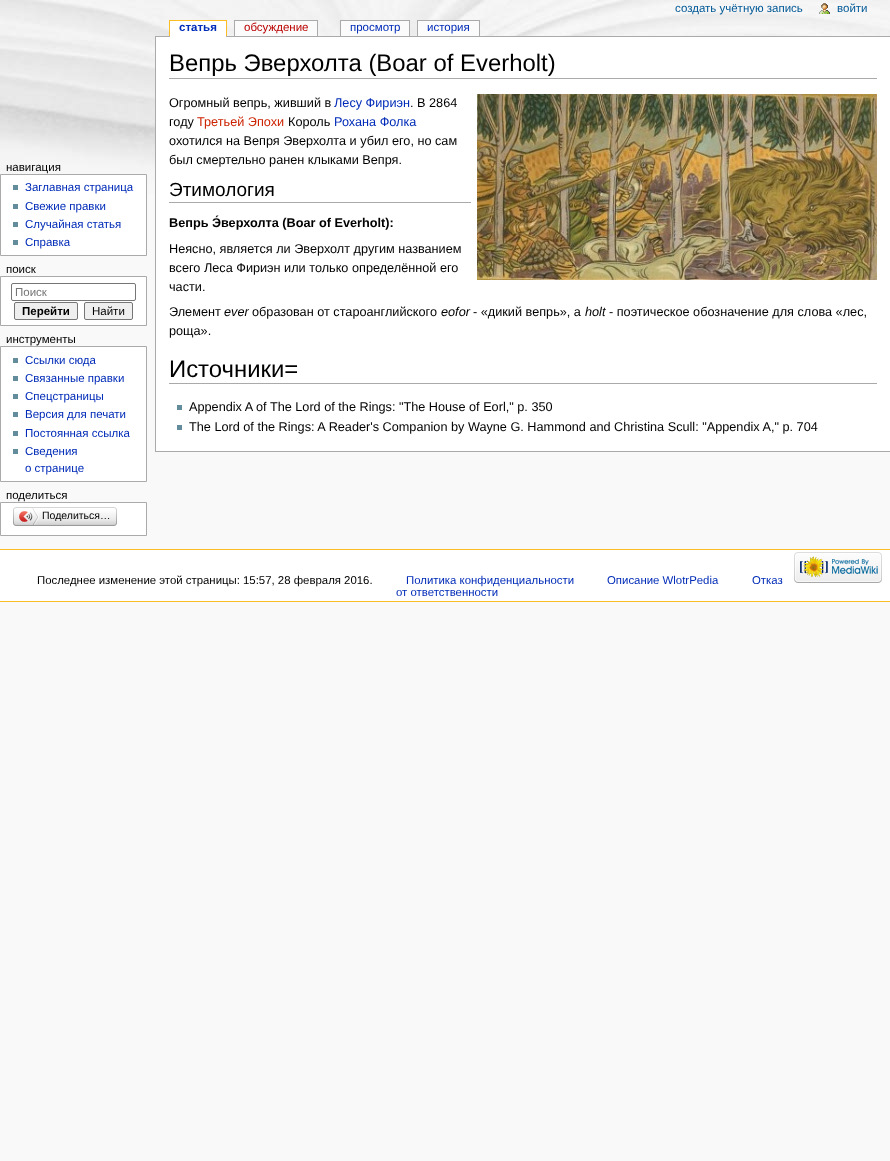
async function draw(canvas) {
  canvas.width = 890
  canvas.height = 1161
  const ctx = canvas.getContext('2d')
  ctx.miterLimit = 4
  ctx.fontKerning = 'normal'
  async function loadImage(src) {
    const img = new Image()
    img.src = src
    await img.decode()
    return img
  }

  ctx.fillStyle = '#f9f9f9'
  ctx.fillRect(0, 0, 890, 1161)
  ctx.drawImage(await loadImage('image0.png'), 0, 0, 890, 194)
  ctx.font = '11.5px Liberation Sans'
  ctx.fillStyle = '#005896'
  ctx.fillText('создать учётную запись', 675, 12)
  ctx.drawImage(await loadImage('image1.png'), 819, 3, 11, 11)
  ctx.fillText('войти', 837, 12)
  ctx.fillStyle = '#aaa'
  ctx.fillRect(155, 36, 735, 1)
  ctx.fillStyle = '#fff'
  ctx.fillRect(170, 21, 56, 16)
  ctx.font = 'bold 11.5px Liberation Sans'
  ctx.fillStyle = '#002bb8'
  ctx.fillText('статья', 179, 31)
  ctx.fillStyle = '#fabd23'
  ctx.fillRect(169, 20, 58, 1)
  ctx.fillRect(226, 20, 1, 16)
  ctx.fillRect(169, 20, 1, 16)
  ctx.fillStyle = '#fbfbfb'
  ctx.fillRect(235, 21, 82, 15)
  ctx.font = '11.5px Liberation Sans'
  ctx.fillStyle = '#ba0000'
  ctx.fillText('обсуждение', 244, 31)
  ctx.fillStyle = '#aaa'
  ctx.fillRect(234, 20, 84, 1)
  ctx.fillRect(317, 20, 1, 16)
  ctx.fillRect(234, 20, 1, 16)
  ctx.fillStyle = '#fbfbfb'
  ctx.fillRect(341, 21, 68, 15)
  ctx.fillStyle = '#002bb8'
  ctx.fillText('просмотр', 350, 31)
  ctx.fillStyle = '#aaa'
  ctx.fillRect(340, 20, 70, 1)
  ctx.fillRect(409, 20, 1, 16)
  ctx.fillRect(340, 20, 1, 16)
  ctx.fillStyle = '#fbfbfb'
  ctx.fillRect(418, 21, 61, 15)
  ctx.fillStyle = '#002bb8'
  ctx.fillText('история', 427, 31)
  ctx.fillStyle = '#aaa'
  ctx.fillRect(417, 20, 63, 1)
  ctx.fillRect(479, 20, 1, 16)
  ctx.fillRect(417, 20, 1, 16)
  ctx.fillStyle = '#000'
  ctx.fillText('навигация', 6, 171)
  ctx.fillStyle = '#fff'
  ctx.beginPath()
  ctx.rect(0.5, 174.5, 146, 81)
  ctx.fill()
  ctx.strokeStyle = '#aaa'
  ctx.stroke()
  ctx.fillStyle = '#638c9c'
  ctx.fillRect(13, 185, 5, 5)
  ctx.fillStyle = '#002bb8'
  ctx.fillText('Заглавная страница', 25, 191)
  ctx.fillStyle = '#638c9c'
  ctx.fillRect(13, 204, 5, 5)
  ctx.fillStyle = '#002bb8'
  ctx.fillText('Свежие правки', 25, 210)
  ctx.fillStyle = '#638c9c'
  ctx.fillRect(13, 222, 5, 5)
  ctx.fillStyle = '#002bb8'
  ctx.fillText('Случайная статья', 25, 228)
  ctx.fillStyle = '#638c9c'
  ctx.fillRect(13, 240, 5, 5)
  ctx.fillStyle = '#002bb8'
  ctx.fillText('Справка', 25, 246)
  ctx.fillStyle = '#000'
  ctx.fillText('поиск', 6, 273)
  ctx.fillStyle = '#fff'
  ctx.beginPath()
  ctx.rect(0.5, 276.5, 146, 49)
  ctx.fill()
  ctx.stroke()
  ctx.beginPath()
  ctx.roundRect(11.5, 283.5, 124, 17, 1.5)
  ctx.strokeStyle = '#767676'
  ctx.stroke()
  ctx.fillStyle = '#757575'
  ctx.fillText('Поиск', 15, 296)
  ctx.fillStyle = '#efefef'
  ctx.beginPath()
  ctx.roundRect(14.5, 302.5, 63, 17, 1.5)
  ctx.fill()
  ctx.stroke()
  ctx.font = 'bold 11.5px Liberation Sans'
  ctx.fillStyle = '#000'
  ctx.fillText('Перейти', 22, 315)
  ctx.fillStyle = '#efefef'
  ctx.beginPath()
  ctx.roundRect(84.5, 302.5, 48, 17, 1.5)
  ctx.fill()
  ctx.stroke()
  ctx.font = '11.5px Liberation Sans'
  ctx.fillStyle = '#000'
  ctx.fillText('Найти', 92, 315)
  ctx.fillText('инструменты', 6, 343)
  ctx.fillStyle = '#fff'
  ctx.beginPath()
  ctx.rect(0.5, 346.5, 146, 135)
  ctx.fill()
  ctx.strokeStyle = '#aaa'
  ctx.stroke()
  ctx.fillStyle = '#638c9c'
  ctx.fillRect(13, 358, 5, 5)
  ctx.fillStyle = '#002bb8'
  ctx.fillText('Ссылки сюда', 25, 364)
  ctx.fillStyle = '#638c9c'
  ctx.fillRect(13, 376, 5, 5)
  ctx.fillStyle = '#002bb8'
  ctx.fillText('Связанные правки', 25, 382)
  ctx.fillStyle = '#638c9c'
  ctx.fillRect(13, 394, 5, 5)
  ctx.fillStyle = '#002bb8'
  ctx.fillText('Спецстраницы', 25, 400)
  ctx.fillStyle = '#638c9c'
  ctx.fillRect(13, 412, 5, 5)
  ctx.fillStyle = '#002bb8'
  ctx.fillText('Версия для печати', 25, 418)
  ctx.fillStyle = '#638c9c'
  ctx.fillRect(13, 431, 5, 5)
  ctx.fillStyle = '#002bb8'
  ctx.fillText('Постоянная ссылка', 25, 437)
  ctx.fillStyle = '#638c9c'
  ctx.fillRect(13, 449, 5, 5)
  ctx.fillStyle = '#002bb8'
  ctx.fillText('Сведения', 25, 455)
  ctx.fillText('о странице', 25, 472)
  ctx.fillStyle = '#000'
  ctx.fillText('поделиться', 6, 499)
  ctx.fillStyle = '#fff'
  ctx.beginPath()
  ctx.rect(0.5, 502.5, 146, 33)
  ctx.fill()
  ctx.stroke()
  ctx.drawImage(await loadImage('image2.png'), 16, 507, 98, 19)
  ctx.drawImage(await loadImage('image3.png'), 13, 507, 3, 19)
  ctx.drawImage(await loadImage('image4.png'), 19, 508, 20, 17)
  ctx.font = '10.5px Liberation Sans'
  ctx.fillStyle = '#000'
  ctx.fillText('Поделиться…', 42, 519)
  ctx.drawImage(await loadImage('image5.png'), 114, 507, 3, 19)
  ctx.fillStyle = '#fff'
  ctx.fillRect(156, 37, 734, 414)
  ctx.fillStyle = '#aaa'
  ctx.fillRect(155, 451, 735, 1)
  ctx.fillRect(155, 36, 1, 416)
  ctx.fillRect(169, 78, 708, 1)
  ctx.font = '23.9px Liberation Sans'
  ctx.fillStyle = '#000'
  ctx.fillText('Вепрь Эверхолта (Boar of Everholt)', 169, 71)
  ctx.font = '12.7px Liberation Sans'
  ctx.fillText('Огромный вепрь, живший в', 169, 107)
  ctx.fillStyle = '#002bb8'
  ctx.fillText('Лесу Фириэн', 334, 107)
  ctx.fillStyle = '#000'
  ctx.fillText('. В 2864', 410, 107)
  ctx.drawImage(await loadImage('image6.png'), 477, 94, 400, 186)
  ctx.fillText('году', 169, 126)
  ctx.fillStyle = '#c20'
  ctx.fillText('Третьей Эпохи', 197, 126)
  ctx.fillStyle = '#000'
  ctx.fillText('Король', 288, 126)
  ctx.fillStyle = '#002bb8'
  ctx.fillText('Рохана Фолка', 334, 126)
  ctx.fillStyle = '#000'
  ctx.fillText('охотился на Вепря Эверхолта и убил его, но сам', 169, 145)
  ctx.fillText('был смертельно ранен клыками Вепря.', 169, 164)
  ctx.fillStyle = '#aaa'
  ctx.fillRect(169, 202, 302, 1)
  ctx.font = '19px Liberation Sans'
  ctx.fillStyle = '#000'
  ctx.fillText('Этимология', 169, 196)
  ctx.font = 'bold 12.7px Liberation Sans'
  ctx.fillText('Вепрь Э́верхолта (Boar of Everholt):', 169, 227)
  ctx.font = '12.7px Liberation Sans'
  ctx.fillText('Неясно, является ли Эверхолт другим названием', 169, 253)
  ctx.fillText('всего Леса Фириэн или только определённой его', 169, 272)
  ctx.fillText('части.', 169, 291)
  ctx.fillText('Элемент', 169, 316)
  ctx.font = 'italic 12.7px Liberation Sans'
  ctx.fillText('ever', 224, 316)
  ctx.font = '12.7px Liberation Sans'
  ctx.fillText('образован от староанглийского', 252, 316)
  ctx.font = 'italic 12.7px Liberation Sans'
  ctx.fillText('eofor', 441, 316)
  ctx.font = '12.7px Liberation Sans'
  ctx.fillText('- «дикий вепрь», а', 473, 316)
  ctx.font = 'italic 12.7px Liberation Sans'
  ctx.fillText('holt', 585, 316)
  ctx.font = '12.7px Liberation Sans'
  ctx.fillText('- поэтическое обозначение для слова «лес,', 609, 316)
  ctx.fillText('роща».', 169, 335)
  ctx.fillStyle = '#aaa'
  ctx.fillRect(169, 383, 708, 1)
  ctx.font = '23.9px Liberation Sans'
  ctx.fillStyle = '#000'
  ctx.fillText('Источники=', 169, 377)
  ctx.fillStyle = '#638c9c'
  ctx.fillRect(177, 405, 5, 5)
  ctx.font = '12.7px Liberation Sans'
  ctx.fillStyle = '#000'
  ctx.fillText('Appendix A of The Lord of the Rings: "The House of Eorl," p. 350', 189, 411)
  ctx.fillStyle = '#638c9c'
  ctx.fillRect(177, 425, 5, 5)
  ctx.fillStyle = '#000'
  ctx.fillText('The Lord of the Rings: A Reader\'s Companion by Wayne G. Hammond and Christina Scull: "Appendix A," p. 704', 189, 431)
  ctx.fillStyle = '#fff'
  ctx.fillRect(0, 550, 890, 51)
  ctx.fillStyle = '#fabd23'
  ctx.fillRect(0, 549, 890, 1)
  ctx.fillRect(0, 601, 890, 1)
  ctx.drawImage(await loadImage('image7.png'), 794, 552, 88, 31)
  ctx.font = '11.4px Liberation Sans'
  ctx.fillStyle = '#000'
  ctx.fillText('Последнее изменение этой страницы: 15:57, 28 февраля 2016.', 37, 584)
  ctx.fillStyle = '#002bb8'
  ctx.fillText('Политика конфиденциальности', 406, 584)
  ctx.fillText('Описание WlotrPedia', 607, 584)
  ctx.fillText('Отказ', 752, 584)
  ctx.fillText('от ответственности', 396, 596)
}

draw(document.querySelector('canvas'))
